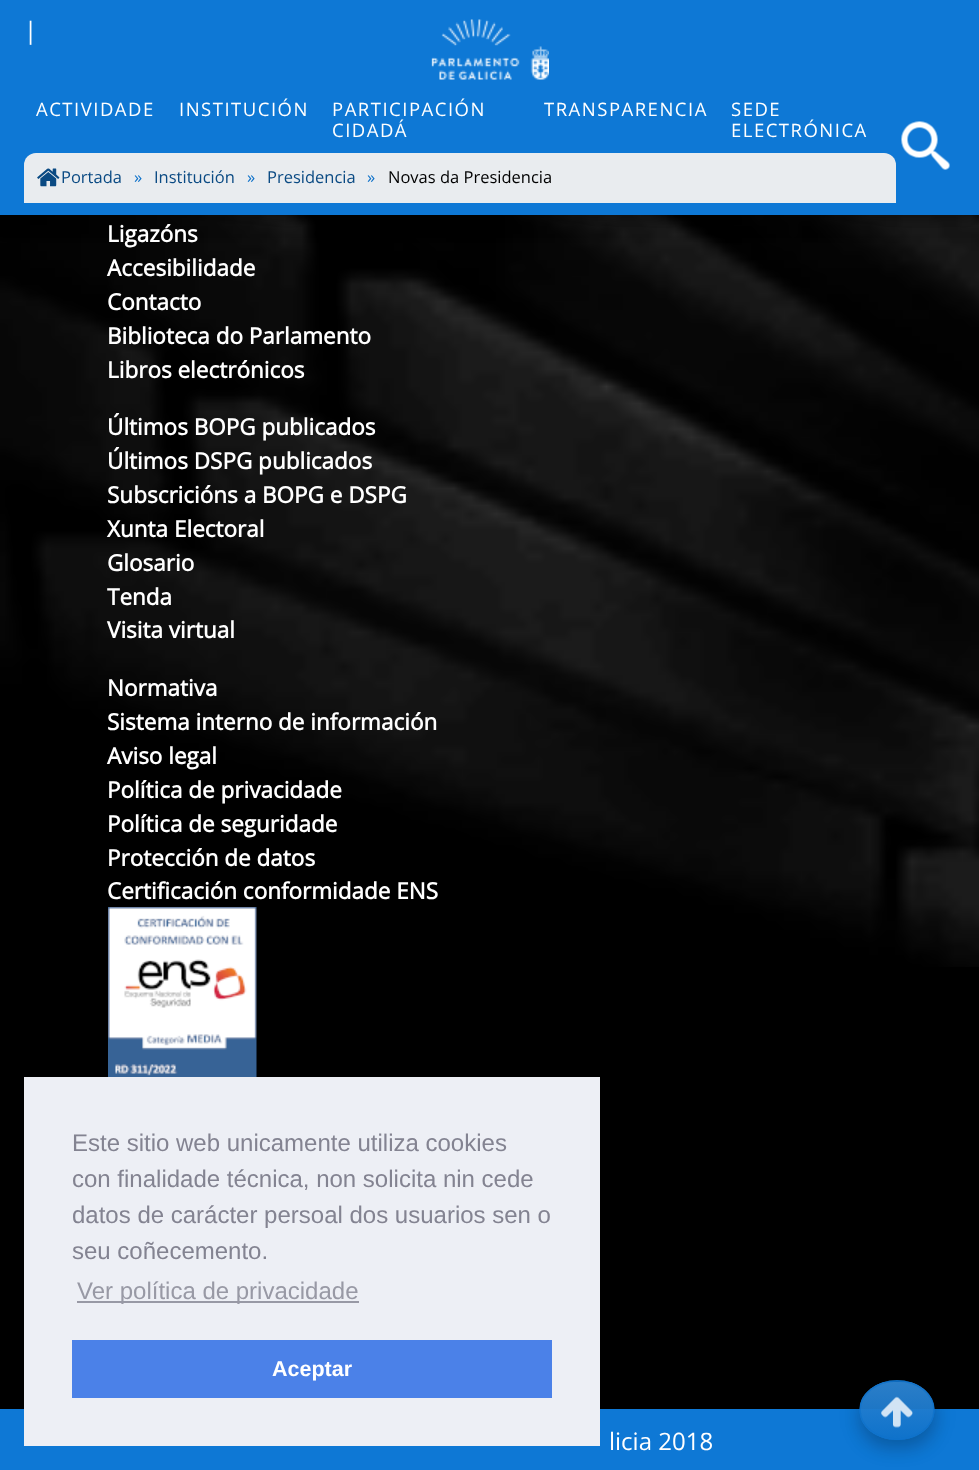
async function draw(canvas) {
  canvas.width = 979
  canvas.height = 1470
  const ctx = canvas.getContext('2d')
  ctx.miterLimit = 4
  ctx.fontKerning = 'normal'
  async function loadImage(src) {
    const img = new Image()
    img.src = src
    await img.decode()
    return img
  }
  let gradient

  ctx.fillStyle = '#000'
  ctx.fillRect(0, 0, 979, 1470)
  ctx.drawImage(await loadImage('image3.png'), 0, 215, 979, 752)
  ctx.fillStyle = '#00000026'
  ctx.filter = 'blur(11px)'
  ctx.beginPath()
  ctx.rect(0, 6, 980, 215)
  ctx.fill()
  ctx.filter = 'none'
  ctx.fillStyle = '#0000002e'
  ctx.filter = 'blur(8px)'
  ctx.beginPath()
  ctx.rect(0, 8, 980, 214)
  ctx.fill()
  ctx.filter = 'none'
  ctx.fillStyle = '#0e78d5'
  ctx.fillRect(0, 0, 979, 215)
  ctx.font = '24px Open Sans'
  ctx.fillStyle = '#fff'
  ctx.fillText('|', 24, 39)
  ctx.drawImage(await loadImage('image0.png'), 431, 19, 118, 61)
  ctx.letterSpacing = '1.5px'
  ctx.font = '18.5px Open Sans'
  ctx.fillText('ACTIVIDADE', 36, 116)
  ctx.fillText('INSTITUCIÓN', 179, 116)
  ctx.fillText('PARTICIPACIÓN', 332, 116)
  ctx.fillText('CIDADÁ', 332, 137)
  ctx.fillText('TRANSPARENCIA', 544, 116)
  ctx.fillText('SEDE', 731, 116)
  ctx.fillText('ELECTRÓNICA', 731, 137)
  ctx.fillStyle = '#e9ecef'
  ctx.beginPath()
  ctx.roundRect(24, 153, 872, 50, [12, 12, 0, 0])
  ctx.fill()
  ctx.drawImage(await loadImage('image1.png'), 37, 168, 23, 19)
  ctx.letterSpacing = '0px'
  ctx.font = '16.5px Open Sans'
  ctx.fillStyle = '#0a4a83'
  ctx.fillText('Portada', 61, 183)
  ctx.fillStyle = '#0f72ca'
  ctx.fillText('»', 134, 183)
  ctx.fillStyle = '#0a4a83'
  ctx.fillText('Institución', 154, 183)
  ctx.fillStyle = '#0f72ca'
  ctx.fillText('»', 247, 183)
  ctx.fillStyle = '#0a4a83'
  ctx.fillText('Presidencia', 267, 183)
  ctx.fillStyle = '#0f72ca'
  ctx.fillText('»', 367, 183)
  ctx.fillStyle = '#000'
  ctx.fillText('Novas da Presidencia', 388, 183)
  ctx.drawImage(await loadImage('image2.png'), 901, 121, 49, 49)
  ctx.font = 'bold 22.5px Open Sans'
  ctx.fillStyle = '#fff'
  ctx.fillText('Ligazóns', 107, 242)
  ctx.fillText('Accesibilidade', 107, 276)
  ctx.fillText('Contacto', 107, 310)
  ctx.fillText('Biblioteca do Parlamento', 107, 344)
  ctx.fillText('Libros electrónicos', 107, 378)
  ctx.fillText('Últimos BOPG publicados', 107, 435)
  ctx.fillText('Últimos DSPG publicados', 107, 469)
  ctx.fillText('Subscricións a BOPG e DSPG', 107, 503)
  ctx.fillText('Xunta Electoral', 107, 537)
  ctx.fillText('Glosario', 107, 571)
  ctx.fillText('Tenda', 107, 605)
  ctx.fillText('Visita virtual', 107, 638)
  ctx.fillText('Normativa', 107, 696)
  ctx.fillText('Sistema interno de información', 107, 730)
  ctx.fillText('Aviso legal', 107, 764)
  ctx.fillText('Política de privacidade', 107, 798)
  ctx.fillText('Política de seguridade', 107, 832)
  ctx.fillText('Protección de datos', 107, 866)
  ctx.fillText('Certificación conformidade ENS', 107, 899)
  ctx.drawImage(await loadImage('image4.png'), 108, 907, 149, 170)
  ctx.fillStyle = '#0e78d5'
  ctx.fillRect(0, 1409, 979, 61)
  ctx.font = '24px Open Sans'
  ctx.fillStyle = '#fff'
  ctx.fillText('licia 2018', 609, 1450)
  ctx.fillStyle = '#edeff5'
  ctx.fillRect(24, 1077, 576, 369)
  ctx.font = '24px Liberation Sans'
  ctx.fillStyle = '#838391'
  ctx.fillText('Este sitio web unicamente utiliza cookies', 72, 1151)
  ctx.fillText('con finalidade técnica, non solicita nin cede', 72, 1187)
  ctx.fillText('datos de carácter persoal dos usuarios sen o', 72, 1223)
  ctx.fillText('seu coñecemento.', 72, 1259)
  ctx.fillStyle = '#9899a5'
  ctx.fillRect(77, 1301, 282, 2)
  ctx.fillText('Ver política de privacidade', 77, 1299)
  ctx.fillStyle = '#4b81e8'
  ctx.fillRect(72, 1340, 480, 58)
  ctx.font = 'bold 21.5px Liberation Sans'
  ctx.fillStyle = '#fff'
  ctx.fillText('Aceptar', 272, 1376)
  ctx.save()
  ctx.beginPath()
  ctx.moveTo(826, 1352)
  ctx.lineTo(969, 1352)
  ctx.lineTo(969, 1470)
  ctx.lineTo(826, 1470)
  ctx.closePath()
  ctx.moveTo(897, 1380)
  ctx.bezierCurveTo(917.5, 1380, 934.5, 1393.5, 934.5, 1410)
  ctx.bezierCurveTo(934.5, 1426.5, 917.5, 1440, 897, 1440)
  ctx.bezierCurveTo(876.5, 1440, 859.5, 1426.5, 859.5, 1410)
  ctx.bezierCurveTo(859.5, 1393.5, 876.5, 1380, 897, 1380)
  ctx.closePath()
  ctx.clip('evenodd')
  ctx.fillStyle = '#0000001f'
  ctx.filter = 'blur(11px)'
  ctx.beginPath()
  ctx.roundRect(860, 1386, 75, 60, 30)
  ctx.fill()
  ctx.filter = 'none'
  ctx.restore()
  ctx.save()
  ctx.beginPath()
  ctx.moveTo(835, 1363)
  ctx.lineTo(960, 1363)
  ctx.lineTo(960, 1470)
  ctx.lineTo(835, 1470)
  ctx.closePath()
  ctx.moveTo(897, 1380)
  ctx.bezierCurveTo(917.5, 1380, 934.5, 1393.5, 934.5, 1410)
  ctx.bezierCurveTo(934.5, 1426.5, 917.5, 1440, 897, 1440)
  ctx.bezierCurveTo(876.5, 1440, 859.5, 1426.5, 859.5, 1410)
  ctx.bezierCurveTo(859.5, 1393.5, 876.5, 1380, 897, 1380)
  ctx.closePath()
  ctx.clip('evenodd')
  ctx.fillStyle = '#00000024'
  ctx.filter = 'blur(8px)'
  ctx.beginPath()
  ctx.roundRect(860, 1388, 75, 60, 30)
  ctx.fill()
  ctx.filter = 'none'
  ctx.restore()
  ctx.fillStyle = '#0f72cacc'
  ctx.beginPath()
  ctx.ellipse(897, 1410, 37.5, 30, 0, 0, 2 * Math.PI)
  ctx.fill()
  gradient = ctx.createLinearGradient(897, 1382, 897, 1439)
  gradient.addColorStop(0, '#3387d2cc')
  gradient.addColorStop(1, '#0f72cacc')
  ctx.fillStyle = gradient
  ctx.beginPath()
  ctx.moveTo(860, 1405)
  ctx.bezierCurveTo(862, 1394, 871, 1386, 884, 1382)
  ctx.lineTo(910, 1382)
  ctx.bezierCurveTo(925, 1386, 934, 1397, 934, 1410)
  ctx.bezierCurveTo(934, 1424, 923, 1436, 907, 1439)
  ctx.lineTo(887, 1439)
  ctx.bezierCurveTo(873, 1436, 862, 1427, 860, 1415)
  ctx.closePath()
  ctx.fill()
  ctx.beginPath()
  ctx.moveTo(897, 1381)
  ctx.bezierCurveTo(917.5, 1381, 934, 1394, 934, 1410)
  ctx.bezierCurveTo(934, 1426, 917.5, 1439, 897, 1439)
  ctx.bezierCurveTo(876.5, 1439, 860, 1426, 860, 1410)
  ctx.bezierCurveTo(860, 1394, 876.5, 1381, 897, 1381)
  ctx.closePath()
  ctx.strokeStyle = '#0f72cacc'
  ctx.lineWidth = 1.5
  ctx.stroke()
  ctx.drawImage(await loadImage('image5.png'), 881, 1396, 32, 32)
}

draw(document.querySelector('canvas'))
